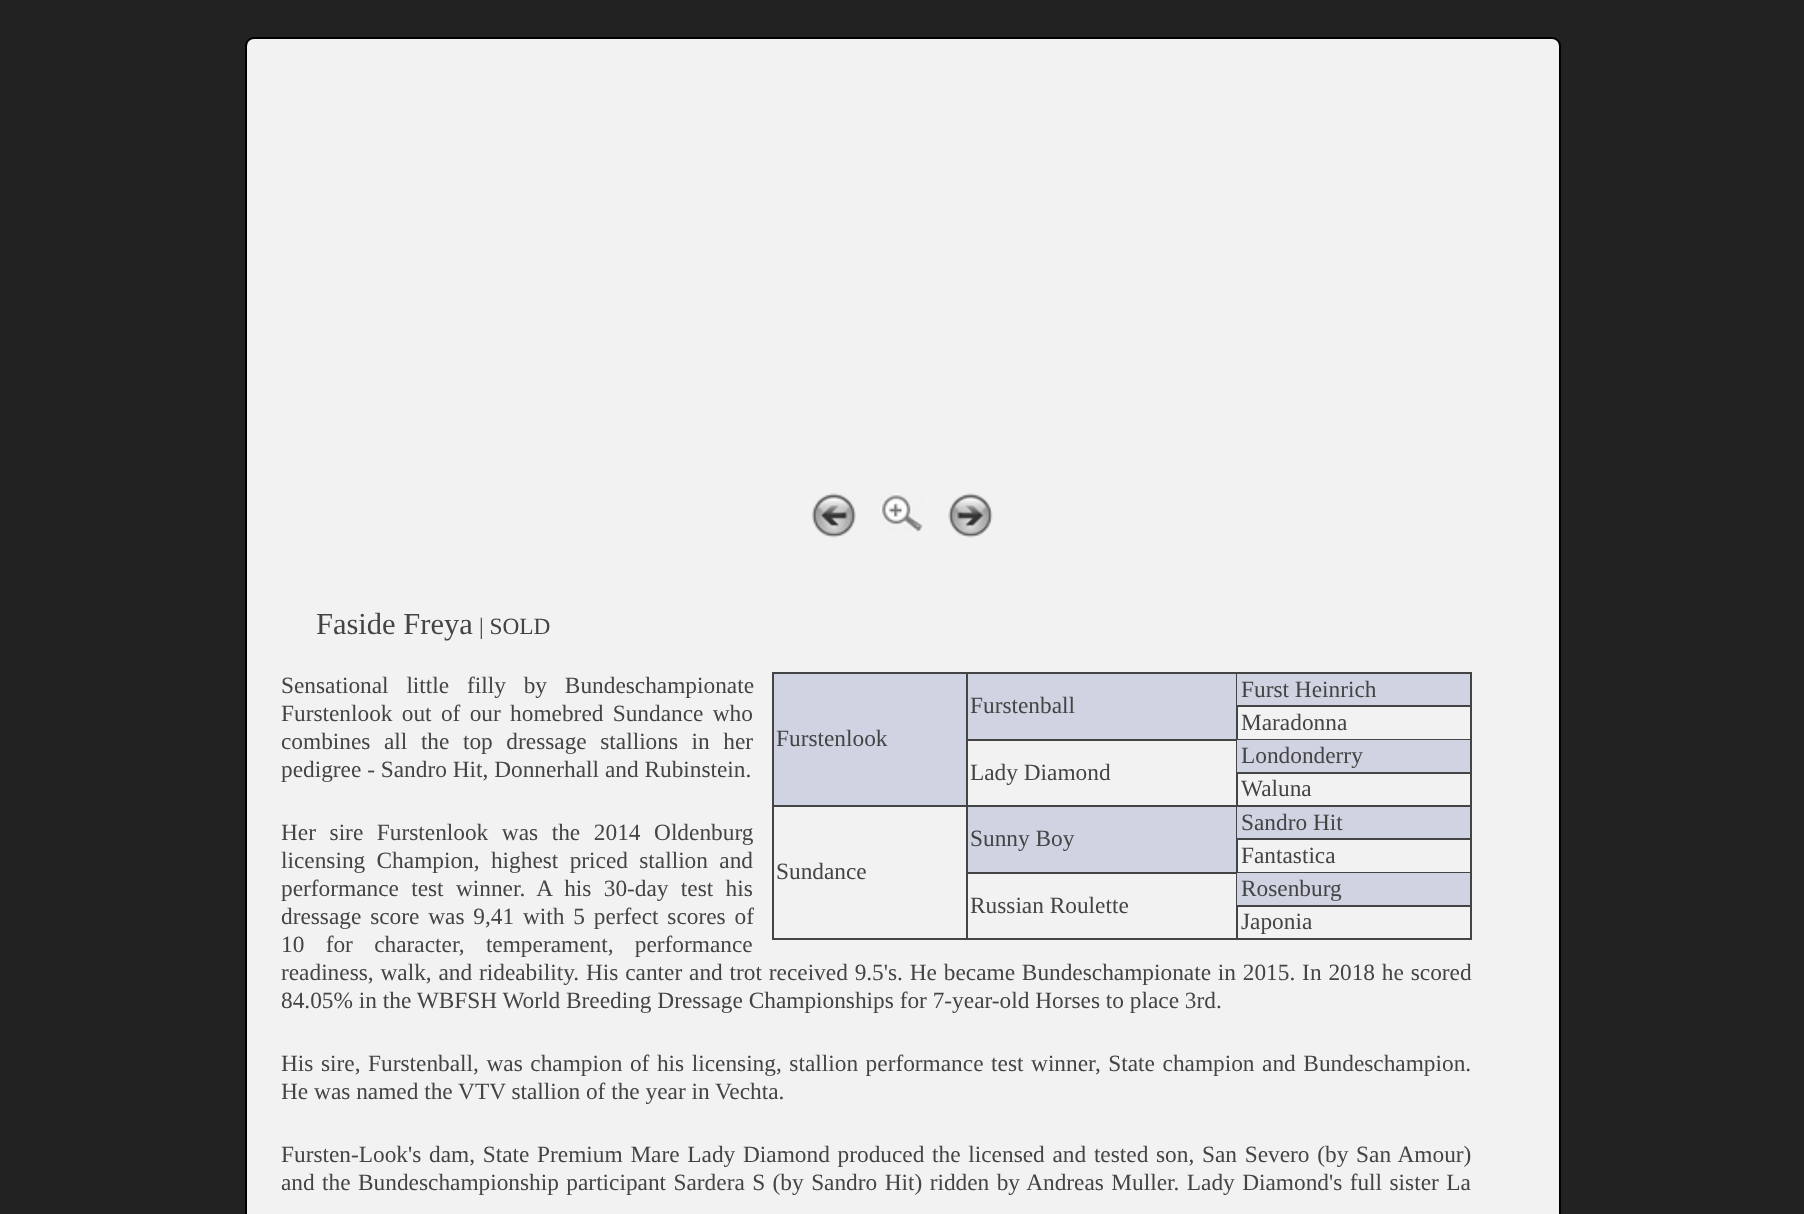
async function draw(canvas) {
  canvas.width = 1804
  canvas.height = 1214
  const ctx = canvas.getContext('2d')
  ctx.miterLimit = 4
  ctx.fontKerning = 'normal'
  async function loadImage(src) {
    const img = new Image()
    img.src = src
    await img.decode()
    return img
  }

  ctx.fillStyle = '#222'
  ctx.fillRect(0, 0, 1804, 1214)
  ctx.fillStyle = '#f2f2f2'
  ctx.beginPath()
  ctx.roundRect(246, 38, 1314, 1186, 8)
  ctx.fill()
  ctx.strokeStyle = '#000'
  ctx.lineWidth = 2
  ctx.stroke()
  ctx.drawImage(await loadImage('image0.png'), 812, 493, 44, 45)
  ctx.drawImage(await loadImage('image1.png'), 880, 493, 44, 39)
  ctx.drawImage(await loadImage('image2.png'), 948, 493, 45, 45)
  ctx.font = '30.5px Liberation Serif'
  ctx.fillStyle = '#444'
  ctx.fillText('Faside Freya', 316, 634)
  ctx.font = '23.33px Liberation Serif'
  ctx.fillText('| SOLD', 479, 634)
  ctx.wordSpacing = '12px'
  ctx.fillText('Sensational little filly by Bundeschampionate', 281, 693)
  ctx.wordSpacing = '3.5px'
  ctx.fillText('Furstenlook out of our homebred Sundance who', 281, 721)
  ctx.wordSpacing = '7.75px'
  ctx.fillText('combines all the top dressage stallions in her', 281, 749)
  ctx.wordSpacing = '0px'
  ctx.fillText('pedigree - Sandro Hit, Donnerhall and Rubinstein.', 281, 777)
  ctx.wordSpacing = '7.75px'
  ctx.fillText('Her sire Furstenlook was the 2014 Oldenburg', 281, 840)
  ctx.wordSpacing = '5.5px'
  ctx.fillText('licensing Champion, highest priced stallion and', 281, 868)
  ctx.wordSpacing = '6.5px'
  ctx.fillText('performance test winner. A his 30-day test his', 281, 896)
  ctx.wordSpacing = '3px'
  ctx.fillText('dressage score was 9,41 with 5 perfect scores of', 281, 924)
  ctx.wordSpacing = '15.5px'
  ctx.fillText('10 for character, temperament, performance', 281, 952)
  ctx.wordSpacing = '1px'
  ctx.fillText('readiness, walk, and rideability. His canter and trot received 9.5\'s. He became Bundeschampionate in 2015. In 2018 he scored', 281, 980)
  ctx.wordSpacing = '0px'
  ctx.fillText('84.05% in the WBFSH World Breeding Dressage Championships for 7-year-old Horses to place 3rd.', 281, 1008)
  ctx.wordSpacing = '1.75px'
  ctx.fillText('His sire, Furstenball, was champion of his licensing, stallion performance test winner, State champion and Bundeschampion.', 281, 1071)
  ctx.wordSpacing = '0px'
  ctx.fillText('He was named the VTV stallion of the year in Vechta.', 281, 1099)
  ctx.wordSpacing = '1.9px'
  ctx.fillText('Fursten-Look\'s dam, State Premium Mare Lady Diamond produced the licensed and tested son, San Severo (by San Amour)', 281, 1162)
  ctx.wordSpacing = '1.6px'
  ctx.fillText('and the Bundeschampionship participant Sardera S (by Sandro Hit) ridden by Andreas Muller. Lady Diamond\'s full sister La', 281, 1190)
  ctx.fillRect(772, 672, 700, 2)
  ctx.fillRect(772, 672, 2, 268)
  ctx.fillRect(1236, 674, 2, 66)
  ctx.fillStyle = '#cfd3e2'
  ctx.fillRect(1237, 674, 233, 31)
  ctx.fillStyle = '#444'
  ctx.fillRect(1470, 674, 2, 266)
  ctx.fillRect(1237, 705, 235, 2)
  ctx.wordSpacing = '0px'
  ctx.fillText('Furst Heinrich', 1241, 697)
  ctx.fillStyle = '#cfd3e2'
  ctx.fillRect(968, 674, 268, 65)
  ctx.fillStyle = '#444'
  ctx.fillRect(968, 739, 269, 2)
  ctx.fillText('Furstenball', 970, 713)
  ctx.fillStyle = '#cfd3e2'
  ctx.fillRect(774, 674, 192, 131)
  ctx.fillStyle = '#444'
  ctx.fillRect(966, 674, 2, 266)
  ctx.fillRect(774, 805, 194, 2)
  ctx.fillText('Furstenlook', 776, 746)
  ctx.fillRect(1237, 739, 235, 1)
  ctx.fillText('Maradonna', 1241, 730)
  ctx.fillRect(1236, 740, 2, 133)
  ctx.fillStyle = '#cfd3e2'
  ctx.fillRect(1237, 740, 233, 32)
  ctx.fillStyle = '#444'
  ctx.fillRect(1237, 772, 235, 2)
  ctx.fillText('Londonderry', 1241, 763)
  ctx.fillRect(968, 805, 504, 2)
  ctx.fillText('Lady Diamond', 970, 780)
  ctx.fillText('Waluna', 1241, 796)
  ctx.fillStyle = '#cfd3e2'
  ctx.fillRect(1237, 807, 233, 31)
  ctx.fillStyle = '#444'
  ctx.fillRect(1237, 838, 235, 2)
  ctx.fillText('Sandro Hit', 1241, 830)
  ctx.fillStyle = '#cfd3e2'
  ctx.fillRect(968, 807, 268, 65)
  ctx.fillStyle = '#444'
  ctx.fillRect(968, 872, 269, 2)
  ctx.fillText('Sunny Boy', 970, 846)
  ctx.fillRect(774, 938, 194, 2)
  ctx.fillText('Sundance', 776, 879)
  ctx.fillRect(1237, 872, 235, 1)
  ctx.fillText('Fantastica', 1241, 863)
  ctx.fillRect(1236, 873, 2, 67)
  ctx.fillStyle = '#cfd3e2'
  ctx.fillRect(1237, 873, 233, 32)
  ctx.fillStyle = '#444'
  ctx.fillRect(1237, 905, 235, 2)
  ctx.fillText('Rosenburg', 1241, 896)
  ctx.fillRect(968, 938, 504, 2)
  ctx.fillText('Russian Roulette', 970, 913)
  ctx.fillText('Japonia', 1241, 929)
}

draw(document.querySelector('canvas'))
